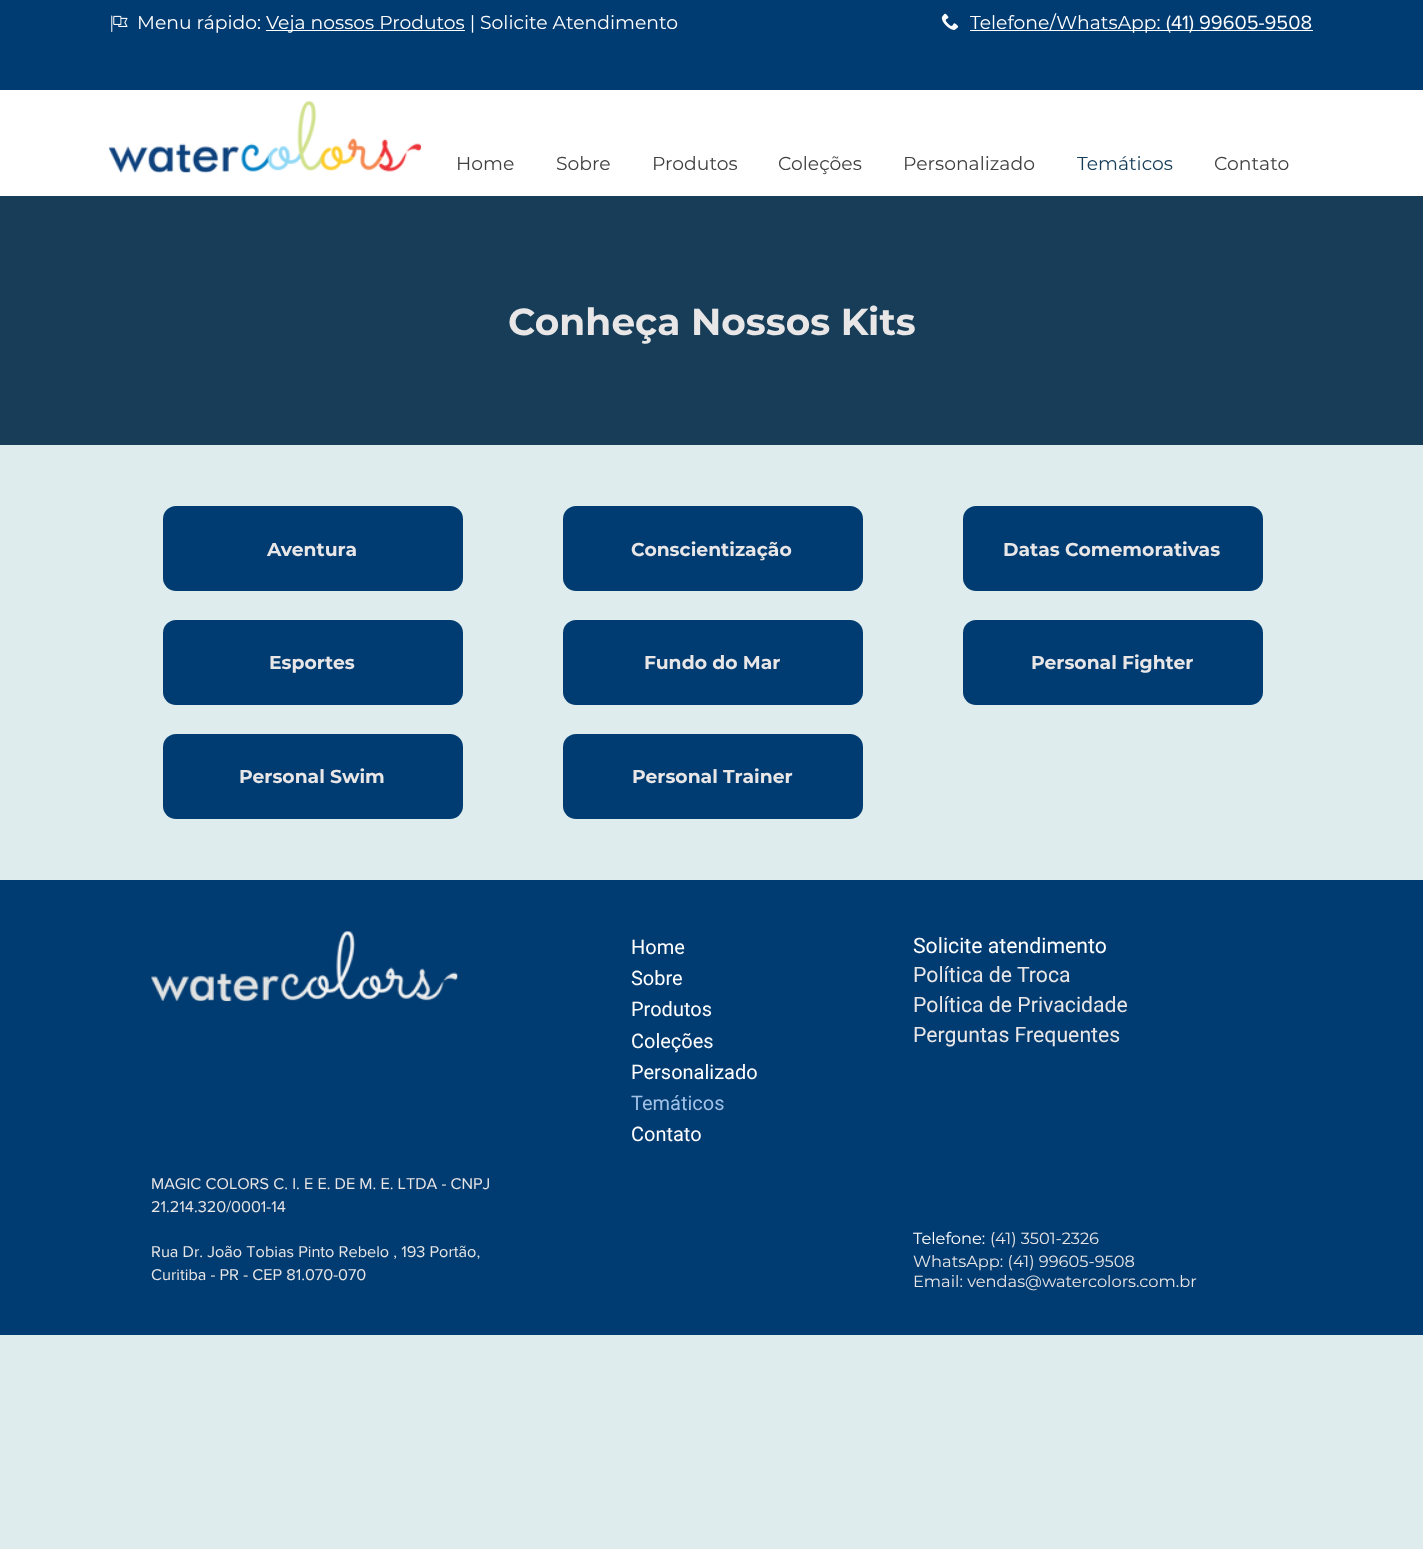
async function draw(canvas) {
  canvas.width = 1423
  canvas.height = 1549
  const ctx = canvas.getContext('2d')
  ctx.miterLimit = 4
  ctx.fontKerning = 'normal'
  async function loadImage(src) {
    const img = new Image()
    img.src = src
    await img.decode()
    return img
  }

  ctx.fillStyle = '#deeced'
  ctx.fillRect(0, 0, 1423, 1549)
  ctx.fillStyle = '#003b71'
  ctx.fillRect(0, 0, 1423, 90)
  ctx.drawImage(await loadImage('image0.png'), 111, 15, 17, 17)
  ctx.font = '18.75px Montserrat'
  ctx.fillStyle = '#fff'
  ctx.fillText('Menu rápido:', 137, 29)
  ctx.fillRect(266, 30, 199, 1)
  ctx.fillText('Veja nossos Produtos | Solicite Atendimento', 266, 29)
  ctx.drawImage(await loadImage('image1.png'), 941, 13, 18, 17)
  ctx.fillRect(970, 30, 343, 1)
  ctx.fillText('Telefone/WhatsApp:', 970, 29)
  ctx.font = '20px "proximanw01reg"'
  ctx.fillText('(41) 99605-9508', 1166, 29)
  ctx.fillRect(0, 90, 1423, 106)
  ctx.drawImage(await loadImage('image2.png'), 108, 101, 314, 72)
  ctx.font = '18.75px Montserrat'
  ctx.fillStyle = '#414141'
  ctx.fillText('Home', 456, 170)
  ctx.fillText('Sobre', 556, 170)
  ctx.fillText('Produtos', 652, 170)
  ctx.fillText('Coleções', 778, 170)
  ctx.fillText('Personalizado', 903, 170)
  ctx.fillStyle = '#173d58'
  ctx.fillText('Temáticos', 1077, 170)
  ctx.fillStyle = '#414141'
  ctx.fillText('Contato', 1214, 170)
  ctx.fillStyle = '#173d58'
  ctx.fillRect(0, 196, 1423, 249)
  ctx.font = 'bold 37.5px Montserrat'
  ctx.fillStyle = '#e8e6e6'
  ctx.fillText('Conheça Nossos Kits', 508, 335)
  ctx.fillStyle = '#003b71'
  ctx.beginPath()
  ctx.roundRect(163, 506, 300, 85, 13)
  ctx.fill()
  ctx.font = 'bold 18.75px Montserrat'
  ctx.fillStyle = '#e8e6e6'
  ctx.fillText('Aventura', 267, 556)
  ctx.fillStyle = '#003b71'
  ctx.beginPath()
  ctx.roundRect(563, 506, 300, 85, 13)
  ctx.fill()
  ctx.fillStyle = '#e8e6e6'
  ctx.fillText('Conscientização', 631, 556)
  ctx.fillStyle = '#003b71'
  ctx.beginPath()
  ctx.roundRect(963, 506, 300, 85, 13)
  ctx.fill()
  ctx.fillStyle = '#e8e6e6'
  ctx.fillText('Datas Comemorativas', 1003, 556)
  ctx.fillStyle = '#003b71'
  ctx.beginPath()
  ctx.roundRect(163, 620, 300, 85, 13)
  ctx.fill()
  ctx.fillStyle = '#e8e6e6'
  ctx.fillText('Esportes', 269, 669)
  ctx.fillStyle = '#003b71'
  ctx.beginPath()
  ctx.roundRect(563, 620, 300, 85, 13)
  ctx.fill()
  ctx.fillStyle = '#e8e6e6'
  ctx.fillText('Fundo do Mar', 644, 669)
  ctx.fillStyle = '#003b71'
  ctx.beginPath()
  ctx.roundRect(963, 620, 300, 85, 13)
  ctx.fill()
  ctx.fillStyle = '#e8e6e6'
  ctx.fillText('Personal Fighter', 1031, 669)
  ctx.fillStyle = '#003b71'
  ctx.beginPath()
  ctx.roundRect(163, 734, 300, 85, 13)
  ctx.fill()
  ctx.fillStyle = '#e8e6e6'
  ctx.fillText('Personal Swim', 239, 783)
  ctx.fillStyle = '#003b71'
  ctx.beginPath()
  ctx.roundRect(563, 734, 300, 85, 13)
  ctx.fill()
  ctx.fillStyle = '#e8e6e6'
  ctx.fillText('Personal Trainer', 632, 783)
  ctx.fillStyle = '#003b71'
  ctx.fillRect(0, 880, 1423, 455)
  ctx.drawImage(await loadImage('image3.png'), 151, 931, 307, 71)
  ctx.font = '20px Roboto'
  ctx.fillStyle = '#fff'
  ctx.fillText('Home', 631, 954)
  ctx.fillText('Sobre', 631, 985)
  ctx.fillText('Produtos', 631, 1016)
  ctx.fillText('Coleções', 631, 1048)
  ctx.fillText('Personalizado', 631, 1079)
  ctx.fillStyle = '#a0c2e8'
  ctx.fillText('Temáticos', 631, 1110)
  ctx.fillStyle = '#fff'
  ctx.fillText('Contato', 631, 1141)
  ctx.font = '21.25px Roboto'
  ctx.fillText('Solicite atendimento', 913, 953)
  ctx.fillStyle = '#e8e6e6'
  ctx.fillText('Política de Troca', 913, 982)
  ctx.fillText('Política de Privacidade', 913, 1012)
  ctx.fillText('Perguntas Frequentes', 913, 1042)
  ctx.font = '16.25px "proximanw01reg"'
  ctx.fillText('MAGIC COLORS C. I. E E. DE M. E. LTDA - CNPJ', 151, 1189)
  ctx.fillText('21.214.320/0001-14', 151, 1212)
  ctx.fillText('Rua Dr. João Tobias Pinto Rebelo , 193 Portão,', 151, 1257)
  ctx.fillText('Curitiba - PR - CEP 81.070-070', 151, 1280)
  ctx.font = '16.25px Montserrat'
  ctx.fillStyle = '#fff'
  ctx.fillText('Telefone:', 913, 1244)
  ctx.fillStyle = '#e8e6e6'
  ctx.fillText('(41) 3501-2326', 990, 1244)
  ctx.fillText('WhatsApp: (', 913, 1267)
  ctx.fillText('41) 99605-9508', 1013, 1267)
  ctx.fillText('Email: vendas@watercolors.com.br', 913, 1287)
}

draw(document.querySelector('canvas'))
